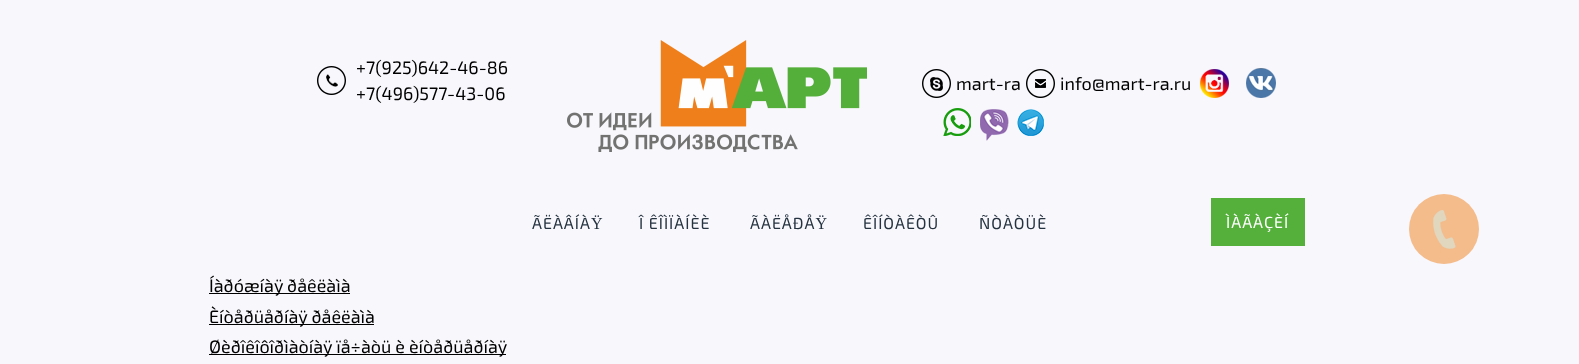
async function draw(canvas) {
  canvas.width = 1579
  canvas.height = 364
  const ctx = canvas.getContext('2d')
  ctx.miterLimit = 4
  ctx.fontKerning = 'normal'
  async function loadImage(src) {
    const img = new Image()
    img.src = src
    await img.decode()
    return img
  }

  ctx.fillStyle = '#f8f7fc'
  ctx.fillRect(0, 0, 1579, 364)
  ctx.drawImage(await loadImage('image0.png'), 317, 66, 29, 29)
  ctx.font = '18px "Exo 2"'
  ctx.fillStyle = '#000'
  ctx.fillText('+7(925)642-46-86', 356, 74)
  ctx.fillText('+7(496)577-43-06', 356, 100)
  ctx.drawImage(await loadImage('image1.png'), 567, 40, 300, 112)
  ctx.drawImage(await loadImage('image2.png'), 922, 69, 29, 29)
  ctx.fillText('mart-ra', 956, 90)
  ctx.drawImage(await loadImage('image3.png'), 1026, 69, 29, 29)
  ctx.fillText('info@mart-ra.ru', 1060, 90)
  ctx.drawImage(await loadImage('image4.png'), 1200, 69, 29, 29)
  ctx.drawImage(await loadImage('image5.png'), 1246, 68, 30, 30)
  ctx.drawImage(await loadImage('image6.png'), 943, 108, 28, 28)
  ctx.drawImage(await loadImage('image7.png'), 980, 109, 29, 32)
  ctx.drawImage(await loadImage('image8.png'), 1017, 109, 27, 27)
  ctx.letterSpacing = '1px'
  ctx.font = '16px "Exo 2"'
  ctx.fillStyle = '#253340'
  ctx.fillText('ÃËÀÂÍÀŸ', 532, 229)
  ctx.fillText('Î ÊÎÌÏÀÍÈÈ', 639, 229)
  ctx.fillText('ÃÀËÅÐÅŸ', 750, 229)
  ctx.fillText('ÊÎÍÒÀÊÒÛ', 863, 229)
  ctx.fillText('ÑÒÀÒÜÈ', 979, 229)
  ctx.fillStyle = '#54af3b'
  ctx.fillRect(1211, 198, 94, 48)
  ctx.fillStyle = '#fff'
  ctx.fillText('ÌÀÃÀÇÈÍ', 1226, 228)
  ctx.fillStyle = '#000'
  ctx.fillRect(209, 293, 141, 1)
  ctx.letterSpacing = '0px'
  ctx.font = '18px "Exo 2"'
  ctx.fillText('Íàðóæíàÿ ðåêëàìà', 209, 292)
  ctx.fillRect(209, 324, 165, 1)
  ctx.fillText('Èíòåðüåðíàÿ ðåêëàìà', 209, 323)
  ctx.fillRect(209, 354, 297, 1)
  ctx.fillText('Øèðîêîôîðìàòíàÿ ïå÷àòü è èíòåðüåðíàÿ', 209, 353)
  ctx.fillStyle = '#f4bb8b'
  ctx.beginPath()
  ctx.arc(1444, 229, 35, 0, 2 * Math.PI)
  ctx.fill()
  ctx.drawImage(await loadImage('image9.png'), 1433, 210, 23, 39)
}

draw(document.querySelector('canvas'))
